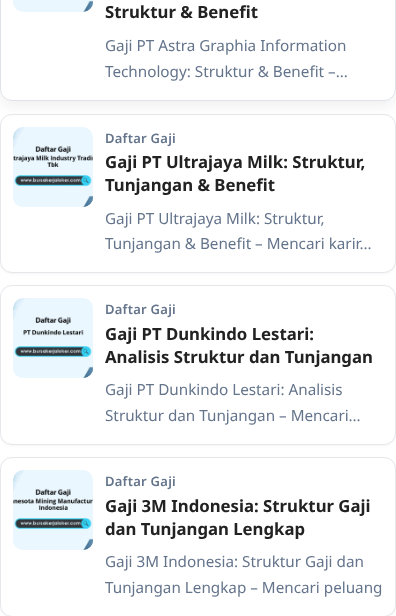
async function draw(canvas) {
  canvas.width = 396
  canvas.height = 616
  const ctx = canvas.getContext('2d')
  ctx.miterLimit = 4
  ctx.fontKerning = 'normal'
  async function loadImage(src) {
    const img = new Image()
    img.src = src
    await img.decode()
    return img
  }

  ctx.fillStyle = '#fff'
  ctx.fillRect(0, 0, 396, 616)
  ctx.fillStyle = '#0000000a'
  ctx.filter = 'blur(1px)'
  ctx.beginPath()
  ctx.roundRect(0, 115, 396, 159, 12)
  ctx.fill()
  ctx.filter = 'none'
  ctx.fillStyle = '#fff'
  ctx.beginPath()
  ctx.roundRect(0.5, 114.5, 395, 158, 11.5)
  ctx.fill()
  ctx.strokeStyle = '#e5e7eb'
  ctx.stroke()
  ctx.fillStyle = '#0f172a0f'
  ctx.filter = 'blur(6px)'
  ctx.beginPath()
  ctx.roundRect(0, -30, 396, 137, 12)
  ctx.fill()
  ctx.filter = 'none'
  ctx.fillStyle = '#fff'
  ctx.beginPath()
  ctx.roundRect(0.5, -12.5, 395, 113, 11.5)
  ctx.fill()
  ctx.strokeStyle = '#dfe3e8'
  ctx.stroke()
  ctx.drawImage(await loadImage('image1.png'), 13, 2, 80, 8)
  ctx.drawImage(await loadImage('image0.png'), 13, 0, 80, 12)
  ctx.font = 'bold 16.75px Noto Sans'
  ctx.fillStyle = '#222'
  ctx.fillText('Struktur & Benefit', 105, 18)
  ctx.font = '15.25px Noto Sans'
  ctx.fillStyle = '#64748b'
  ctx.fillText('Gaji PT Astra Graphia Information', 105, 51)
  ctx.fillText('Technology: Struktur & Benefit –…', 105, 77)
  ctx.drawImage(await loadImage('image2.png'), 13, 127, 80, 80)
  ctx.drawImage(await loadImage('image3.png'), 13, 127, 80, 80)
  ctx.letterSpacing = '0.25px'
  ctx.font = '600 13px Noto Sans'
  ctx.fillText('Daftar Gaji', 105, 143)
  ctx.letterSpacing = '0px'
  ctx.font = 'bold 16.75px Noto Sans'
  ctx.fillStyle = '#222'
  ctx.fillText('Gaji PT Ultrajaya Milk: Struktur,', 105, 168)
  ctx.fillText('Tunjangan & Benefit', 105, 191)
  ctx.font = '15.25px Noto Sans'
  ctx.fillStyle = '#64748b'
  ctx.fillText('Gaji PT Ultrajaya Milk: Struktur,', 105, 224)
  ctx.fillText('Tunjangan & Benefit – Mencari karir…', 105, 249)
  ctx.fillStyle = '#0000000a'
  ctx.filter = 'blur(1px)'
  ctx.beginPath()
  ctx.roundRect(0, 286, 396, 160, 12)
  ctx.fill()
  ctx.filter = 'none'
  ctx.fillStyle = '#fff'
  ctx.beginPath()
  ctx.roundRect(0.5, 285.5, 395, 159, 11.5)
  ctx.fill()
  ctx.strokeStyle = '#e5e7eb'
  ctx.stroke()
  ctx.drawImage(await loadImage('image4.png'), 13, 298, 80, 80)
  ctx.drawImage(await loadImage('image5.png'), 13, 298, 80, 80)
  ctx.letterSpacing = '0.25px'
  ctx.font = '600 13px Noto Sans'
  ctx.fillStyle = '#64748b'
  ctx.fillText('Daftar Gaji', 105, 314)
  ctx.letterSpacing = '0px'
  ctx.font = 'bold 16.75px Noto Sans'
  ctx.fillStyle = '#222'
  ctx.fillText('Gaji PT Dunkindo Lestari:', 105, 340)
  ctx.fillText('Analisis Struktur dan Tunjangan', 105, 363)
  ctx.font = '15.25px Noto Sans'
  ctx.fillStyle = '#64748b'
  ctx.fillText('Gaji PT Dunkindo Lestari: Analisis', 105, 395)
  ctx.fillText('Struktur dan Tunjangan – Mencari…', 105, 421)
  ctx.fillStyle = '#0000000a'
  ctx.filter = 'blur(1px)'
  ctx.beginPath()
  ctx.roundRect(0, 458, 396, 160, 12)
  ctx.fill()
  ctx.filter = 'none'
  ctx.fillStyle = '#fff'
  ctx.beginPath()
  ctx.roundRect(0.5, 457.5, 395, 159, 11.5)
  ctx.fill()
  ctx.stroke()
  ctx.drawImage(await loadImage('image6.png'), 13, 470, 80, 80)
  ctx.drawImage(await loadImage('image7.png'), 13, 470, 80, 80)
  ctx.letterSpacing = '0.25px'
  ctx.font = '600 13px Noto Sans'
  ctx.fillStyle = '#64748b'
  ctx.fillText('Daftar Gaji', 105, 486)
  ctx.letterSpacing = '0px'
  ctx.font = 'bold 16.75px Noto Sans'
  ctx.fillStyle = '#222'
  ctx.fillText('Gaji 3M Indonesia: Struktur Gaji', 105, 512)
  ctx.fillText('dan Tunjangan Lengkap', 105, 535)
  ctx.font = '15.25px Noto Sans'
  ctx.fillStyle = '#64748b'
  ctx.fillText('Gaji 3M Indonesia: Struktur Gaji dan', 105, 567)
  ctx.fillText('Tunjangan Lengkap – Mencari peluang', 105, 593)
}

draw(document.querySelector('canvas'))
